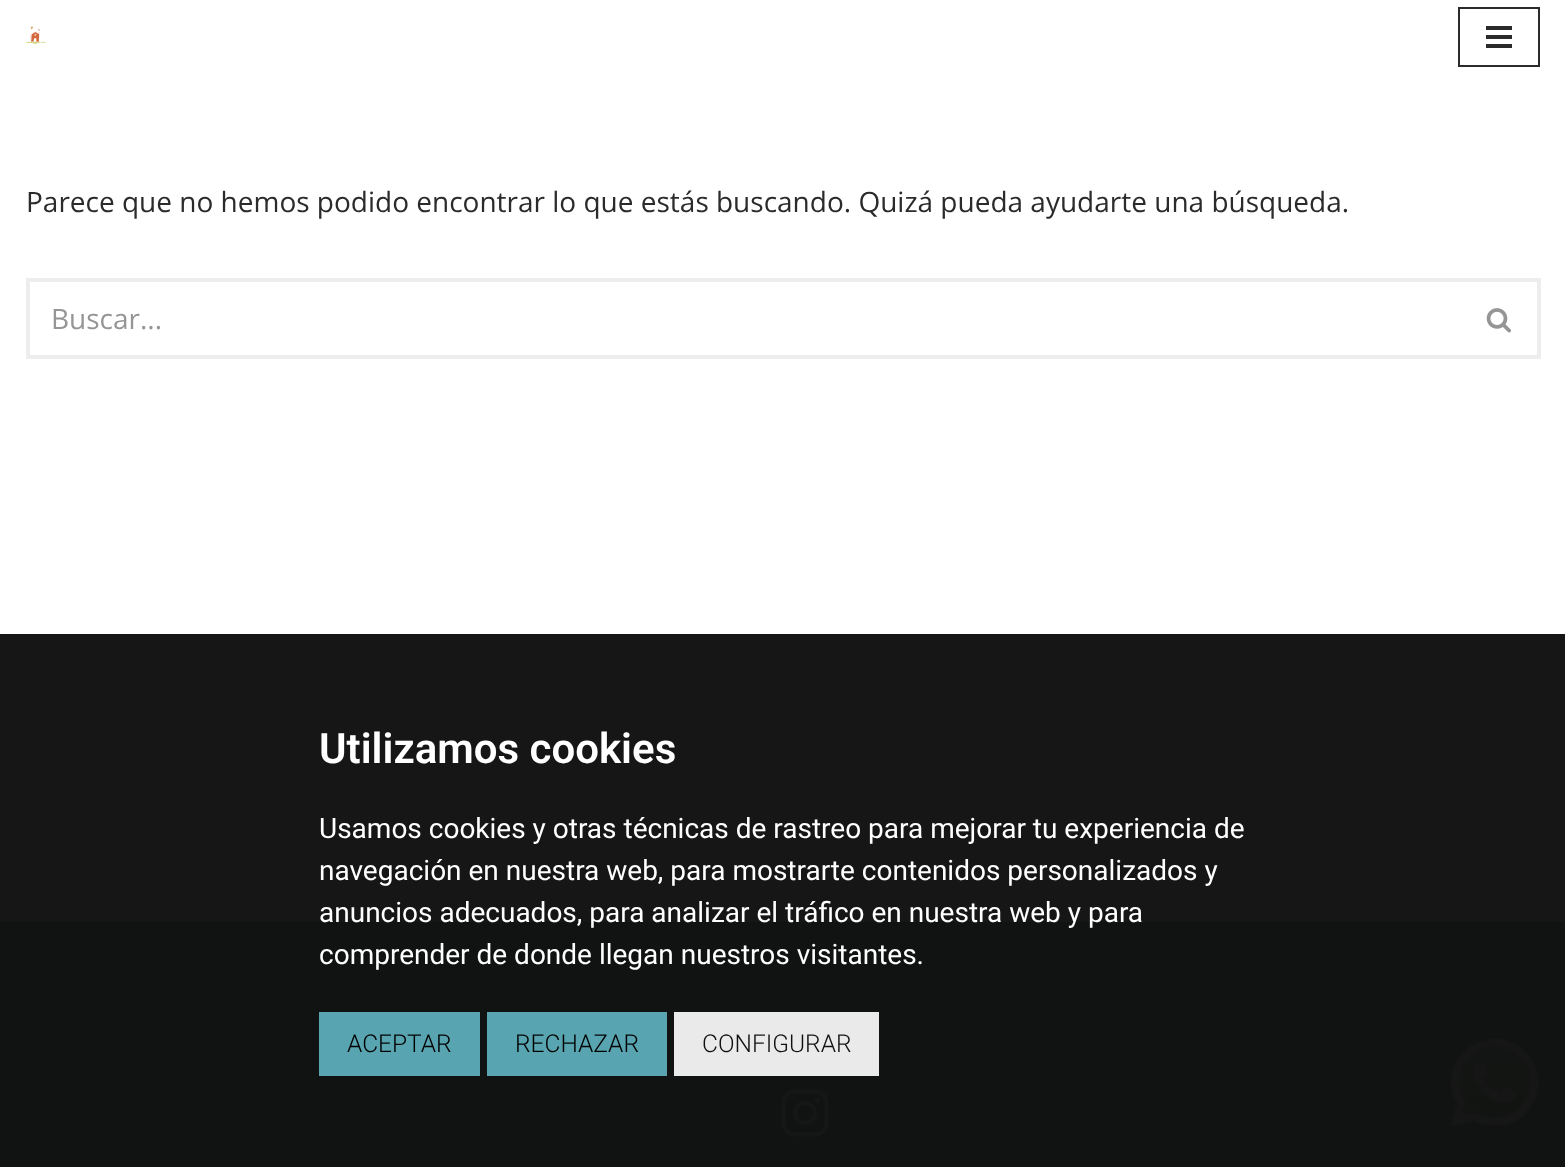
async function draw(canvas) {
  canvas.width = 1565
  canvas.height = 1167
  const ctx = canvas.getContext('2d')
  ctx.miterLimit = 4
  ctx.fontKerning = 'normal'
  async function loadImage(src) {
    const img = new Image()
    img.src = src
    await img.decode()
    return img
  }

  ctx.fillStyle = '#fff'
  ctx.fillRect(0, 0, 1565, 1167)
  ctx.fillStyle = '#161616'
  ctx.fillRect(0, 634, 1565, 288)
  ctx.drawImage(await loadImage('image0.png'), 26, 26, 20, 18)
  ctx.strokeStyle = '#2b2b2b'
  ctx.lineWidth = 2
  ctx.strokeRect(1459, 8, 80, 58)
  ctx.fillStyle = '#2b2b2b'
  ctx.fillRect(1486, 26, 26, 4)
  ctx.fillRect(1486, 35, 26, 4)
  ctx.fillRect(1486, 44, 26, 4)
  ctx.font = '28px Open Sans'
  ctx.fillText('Parece que no hemos podido encontrar lo que estás buscando. Quizá pueda ayudarte una búsqueda.', 26, 212)
  ctx.fillStyle = '#ededed'
  ctx.fillRect(26, 278, 1514, 4)
  ctx.fillRect(26, 355, 1435, 4)
  ctx.fillRect(26, 278, 4, 81)
  ctx.fillStyle = '#959595'
  ctx.fillText('Buscar...', 51, 329)
  ctx.fillStyle = '#ededed'
  ctx.fillRect(1537, 278, 4, 81)
  ctx.fillRect(1461, 355, 79, 4)
  ctx.drawImage(await loadImage('image1.png'), 1486, 308, 25, 25)
  ctx.fillStyle = '#111313'
  ctx.fillRect(0, 922, 1565, 245)
  ctx.drawImage(await loadImage('image2.png'), 781, 1089, 48, 48)
  ctx.font = '600 42px Roboto'
  ctx.fillStyle = '#fff'
  ctx.fillText('Utilizamos cookies', 319, 763)
  ctx.font = '28px Roboto'
  ctx.fillText('Usamos cookies y otras técnicas de rastreo para mejorar tu experiencia de', 319, 838)
  ctx.fillText('navegación en nuestra web, para mostrarte contenidos personalizados y', 319, 880)
  ctx.fillText('anuncios adecuados, para analizar el tráfico en nuestra web y para', 319, 922)
  ctx.fillText('comprender de donde llegan nuestros visitantes.', 319, 964)
  ctx.fillStyle = '#58a4b0'
  ctx.fillRect(319, 1012, 161, 64)
  ctx.font = '300 24.5px Roboto'
  ctx.fillStyle = '#000'
  ctx.fillText('ACEPTAR', 347, 1052)
  ctx.fillStyle = '#58a4b0'
  ctx.fillRect(487, 1012, 180, 64)
  ctx.fillStyle = '#000'
  ctx.fillText('RECHAZAR', 515, 1052)
  ctx.fillStyle = '#eaeaea'
  ctx.fillRect(674, 1012, 205, 64)
  ctx.fillStyle = '#111'
  ctx.fillText('CONFIGURAR', 702, 1052)
  ctx.drawImage(await loadImage('image3.png'), 1450, 1037, 89, 89)
}

draw(document.querySelector('canvas'))
